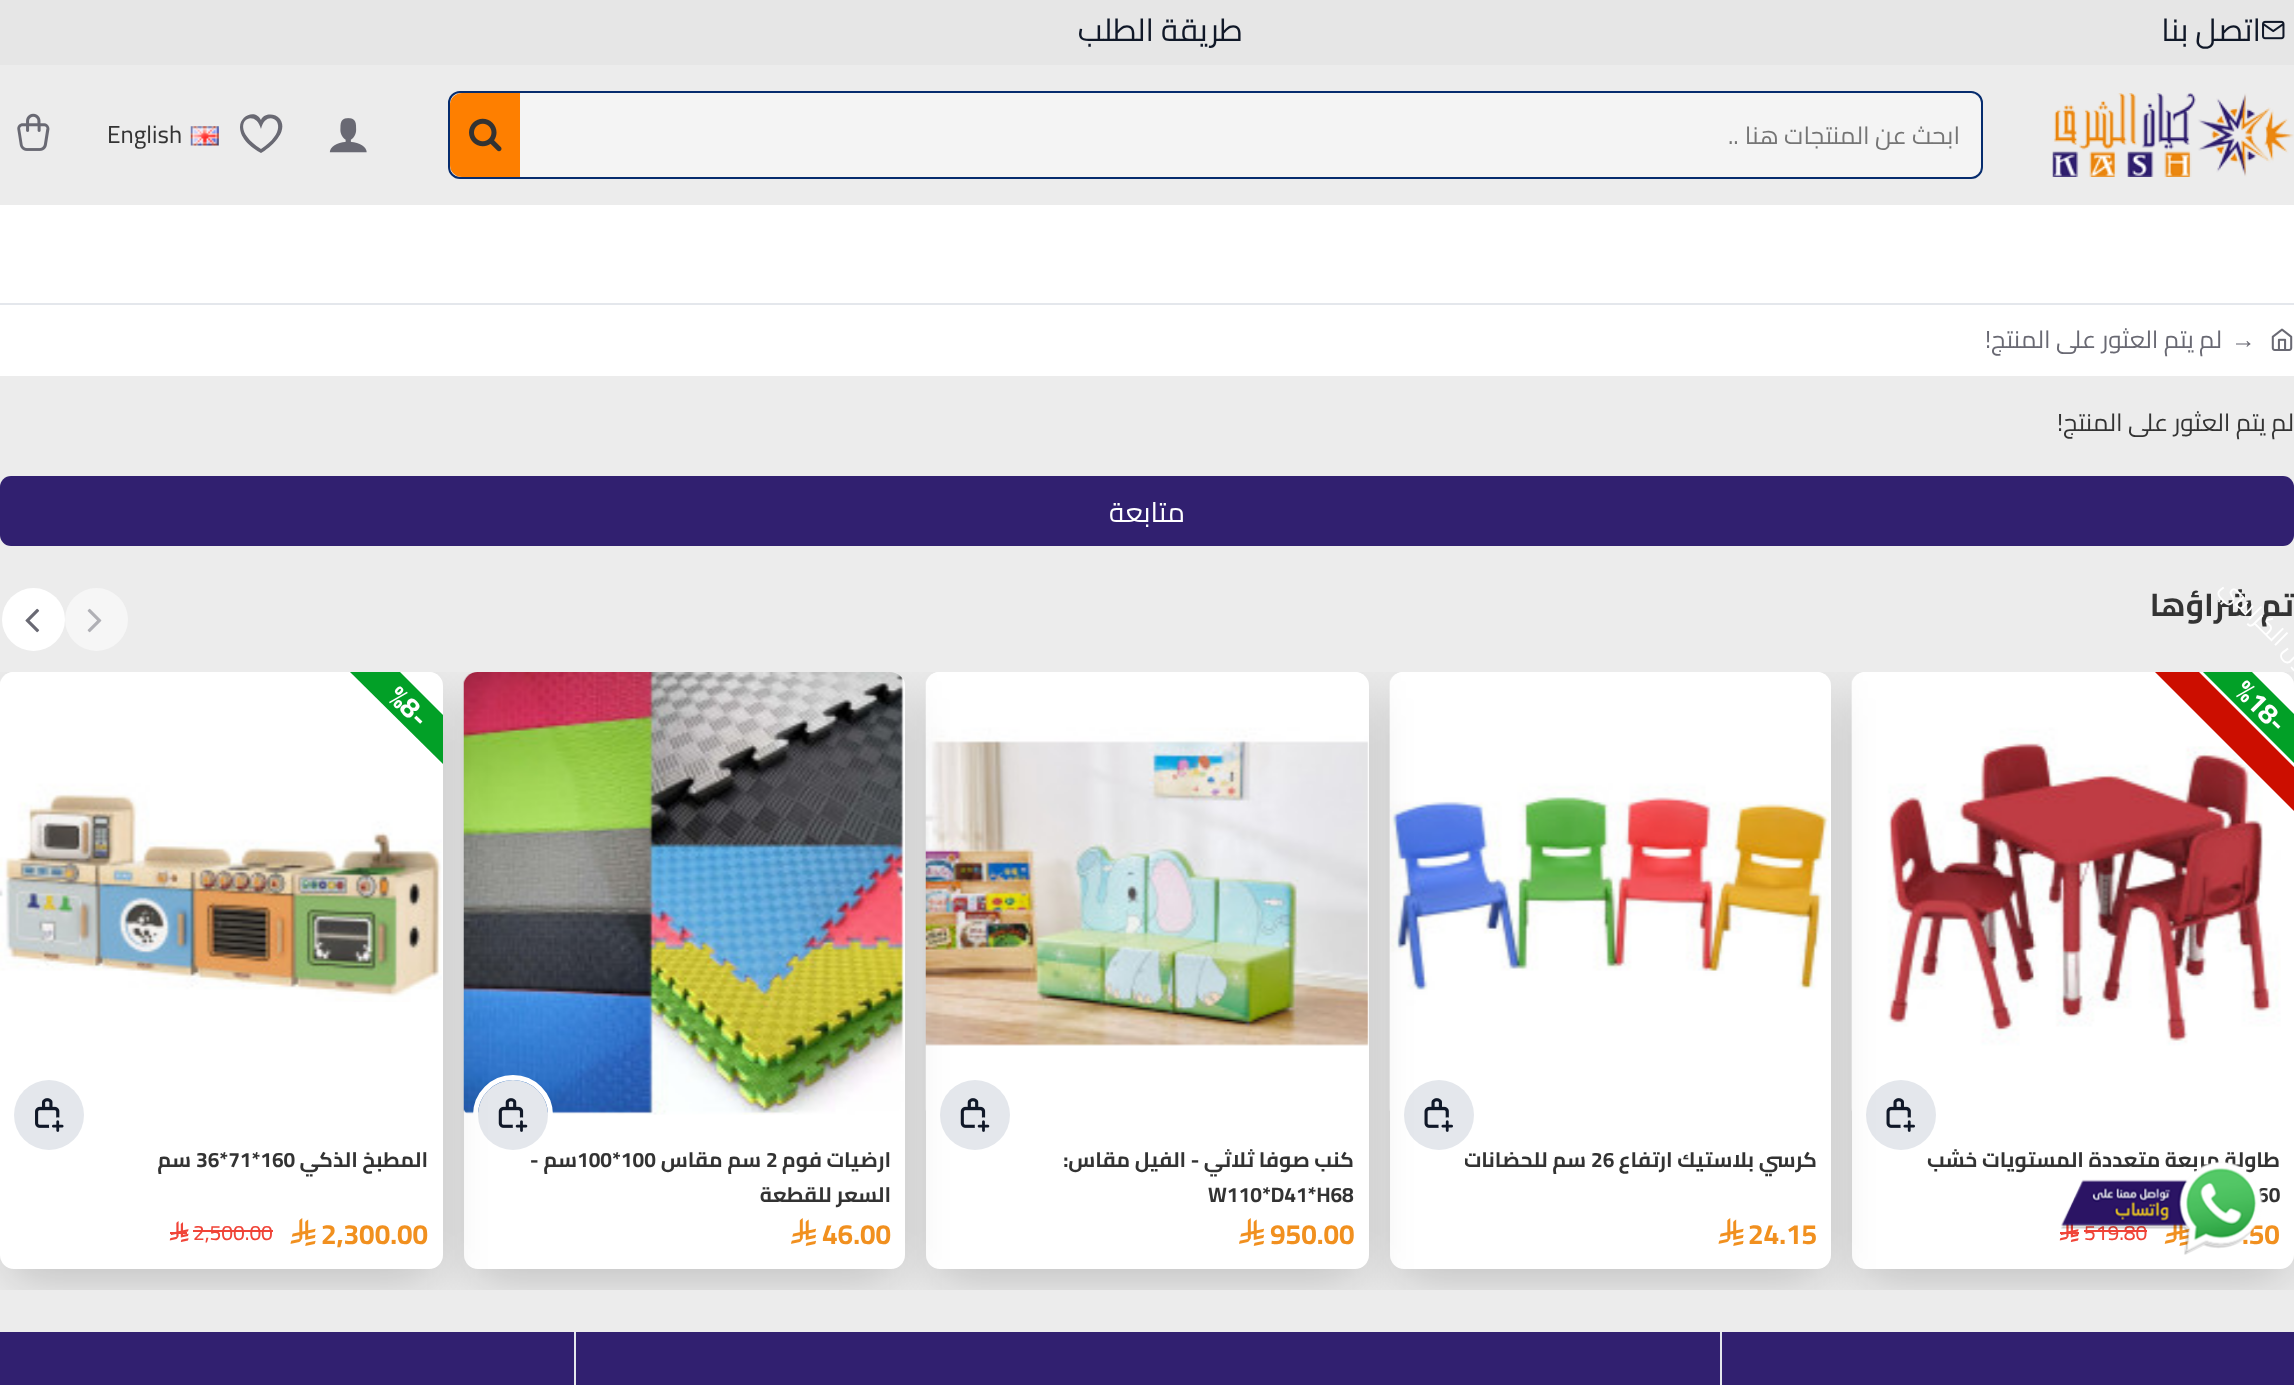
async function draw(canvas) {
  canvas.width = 2294
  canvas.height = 1385
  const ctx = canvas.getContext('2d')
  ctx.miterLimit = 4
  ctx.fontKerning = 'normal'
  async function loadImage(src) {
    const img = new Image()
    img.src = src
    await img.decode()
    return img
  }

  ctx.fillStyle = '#ececec'
  ctx.fillRect(0, 0, 2294, 1385)
  ctx.fillStyle = '#e4e7ec'
  ctx.fillRect(0, 303, 2294, 2)
  ctx.fillStyle = '#e6e6e6'
  ctx.fillRect(0, 0, 2294, 65)
  ctx.drawImage(await loadImage('image0.png'), 2262, 20, 23, 20)
  ctx.direction = 'rtl'
  ctx.font = '31.5px Cairo'
  ctx.fillStyle = '#101828'
  ctx.fillText('اتصل بنا', 2261, 41)
  ctx.fillText('طريقة الطلب', 1243, 41)
  ctx.drawImage(await loadImage('image1.png'), 2052, 93, 242, 84)
  ctx.beginPath()
  ctx.roundRect(449, 92, 1533, 86, 11)
  ctx.strokeStyle = '#062c6e'
  ctx.lineWidth = 2
  ctx.stroke()
  ctx.fillStyle = '#f8f8f8a8'
  ctx.beginPath()
  ctx.roundRect(520, 93, 1461, 84, [0, 12, 12, 0])
  ctx.fill()
  ctx.font = '24.5px Cairo'
  ctx.fillStyle = '#757575'
  ctx.fillText('ابحث عن المنتجات هنا', 1960, 144)
  ctx.direction = 'ltr'
  ctx.fillText('..', 1728, 144)
  ctx.fillStyle = '#fe7f00'
  ctx.beginPath()
  ctx.roundRect(450, 93, 70, 84, [12, 0, 0, 12])
  ctx.fill()
  ctx.drawImage(await loadImage('image2.png'), 469, 118, 33, 34)
  ctx.drawImage(await loadImage('image3.png'), 329, 118, 38, 35)
  ctx.fillStyle = '#696973'
  ctx.beginPath()
  ctx.moveTo(261, 129)
  ctx.bezierCurveTo(266, 105, 297, 125, 261, 149)
  ctx.bezierCurveTo(224, 125, 255, 105, 261, 129)
  ctx.closePath()
  ctx.moveTo(240, 127)
  ctx.bezierCurveTo(240, 139, 252, 148, 261, 153)
  ctx.bezierCurveTo(270, 148, 289, 132, 280, 119)
  ctx.bezierCurveTo(275, 113, 264, 113, 261, 120)
  ctx.bezierCurveTo(256, 109, 240, 115, 240, 127)
  ctx.closePath()
  ctx.fill()
  ctx.drawImage(await loadImage('image4.png'), 190, 126, 29, 20)
  ctx.fillStyle = '#333'
  ctx.fillText('English', 107, 143)
  ctx.drawImage(await loadImage('image5.png'), 17, 113, 33, 38)
  ctx.fillStyle = '#fff'
  ctx.fillRect(0, 205, 2294, 98)
  ctx.fillRect(0, 305, 2294, 71)
  ctx.drawImage(await loadImage('image6.png'), 2271, 328, 22, 23)
  ctx.font = '24.5px Liberation Serif'
  ctx.fillStyle = '#696973'
  ctx.fillText('→', 2231, 348)
  ctx.direction = 'rtl'
  ctx.font = '24.5px Cairo'
  ctx.fillText('لم يتم العثور على المنتج!', 2222, 348)
  ctx.fillStyle = '#333'
  ctx.fillText('لم يتم العثور على المنتج!', 2294, 431)
  ctx.fillStyle = '#312070'
  ctx.beginPath()
  ctx.roundRect(0, 476, 2294, 70, 11)
  ctx.fill()
  ctx.font = '28px Cairo'
  ctx.fillStyle = '#fff'
  ctx.fillText('متابعة', 1185, 522)
  ctx.save()
  ctx.beginPath()
  ctx.rect(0, 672, 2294, 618)
  ctx.clip()
  ctx.fillStyle = '#00000033'
  ctx.filter = 'blur(26px)'
  ctx.beginPath()
  ctx.roundRect(1860, 698, 426, 580, 5)
  ctx.fill()
  ctx.filter = 'none'
  ctx.restore()
  ctx.font = 'bold 31.5px Cairo'
  ctx.fillStyle = '#333'
  ctx.fillText('تم شراؤها', 2294, 616)
  ctx.fillStyle = '#fff'
  ctx.beginPath()
  ctx.roundRect(1852, 672, 442, 597, 14)
  ctx.fill()
  ctx.drawImage(await loadImage('image9.png'), 1851, 672, 443, 439)
  ctx.font = 'bold 21px Cairo'
  ctx.fillStyle = '#333'
  ctx.fillText('طاولة مربعة متعددة المستويات خشب', 2280, 1167)
  ctx.fillStyle = '#e4e7ec'
  ctx.beginPath()
  ctx.arc(1901, 1115, 35, 0, 2 * Math.PI)
  ctx.fill()
  ctx.drawImage(await loadImage('image10.png'), 1886, 1098, 29, 34)
  ctx.save()
  ctx.beginPath()
  ctx.rect(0, 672, 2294, 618)
  ctx.clip()
  ctx.fillStyle = '#00000033'
  ctx.filter = 'blur(26px)'
  ctx.beginPath()
  ctx.roundRect(1398, 698, 424, 580, 5)
  ctx.fill()
  ctx.filter = 'none'
  ctx.restore()
  ctx.fillStyle = '#fff'
  ctx.beginPath()
  ctx.roundRect(1390, 672, 441, 597, 14)
  ctx.fill()
  ctx.drawImage(await loadImage('image13.png'), 1389, 672, 441, 439)
  ctx.fillStyle = '#e4e7ec'
  ctx.beginPath()
  ctx.arc(1439, 1115, 35, 0, 2 * Math.PI)
  ctx.fill()
  ctx.drawImage(await loadImage('image10.png'), 1424, 1098, 29, 34)
  ctx.save()
  ctx.beginPath()
  ctx.rect(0, 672, 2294, 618)
  ctx.clip()
  ctx.fillStyle = '#00000033'
  ctx.filter = 'blur(26px)'
  ctx.beginPath()
  ctx.roundRect(935, 698, 425, 580, 5)
  ctx.fill()
  ctx.filter = 'none'
  ctx.restore()
  ctx.fillStyle = '#fff'
  ctx.beginPath()
  ctx.roundRect(926, 672, 443, 597, 14)
  ctx.fill()
  ctx.drawImage(await loadImage('image15.png'), 925, 672, 444, 439)
  ctx.fillStyle = '#e4e7ec'
  ctx.beginPath()
  ctx.arc(975, 1115, 35, 0, 2 * Math.PI)
  ctx.fill()
  ctx.drawImage(await loadImage('image16.png'), 960, 1098, 30, 34)
  ctx.save()
  ctx.beginPath()
  ctx.rect(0, 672, 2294, 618)
  ctx.clip()
  ctx.fillStyle = '#00000033'
  ctx.filter = 'blur(26px)'
  ctx.beginPath()
  ctx.roundRect(473, 698, 423, 580, 5)
  ctx.fill()
  ctx.filter = 'none'
  ctx.restore()
  ctx.fillStyle = '#fff'
  ctx.beginPath()
  ctx.roundRect(464, 672, 441, 597, 14)
  ctx.fill()
  ctx.drawImage(await loadImage('image18.png'), 463, 672, 442, 443)
  ctx.beginPath()
  ctx.arc(513, 1115, 37.5, 0, 2 * Math.PI)
  ctx.strokeStyle = '#fff'
  ctx.lineWidth = 5
  ctx.stroke()
  ctx.fillStyle = '#e4e7ec'
  ctx.beginPath()
  ctx.arc(513, 1115, 35, 0, 2 * Math.PI)
  ctx.fill()
  ctx.drawImage(await loadImage('image16.png'), 498, 1098, 30, 34)
  ctx.save()
  ctx.beginPath()
  ctx.rect(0, 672, 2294, 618)
  ctx.clip()
  ctx.fillStyle = '#00000033'
  ctx.filter = 'blur(26px)'
  ctx.beginPath()
  ctx.roundRect(9, 698, 425, 580, 5)
  ctx.fill()
  ctx.filter = 'none'
  ctx.restore()
  ctx.fillStyle = '#f6f6f6'
  ctx.beginPath()
  ctx.arc(96.5, 619.5, 31.5, 0, 2 * Math.PI)
  ctx.fill()
  ctx.drawImage(await loadImage('image7.png'), 87, 608, 15, 25)
  ctx.fillStyle = '#fff'
  ctx.beginPath()
  ctx.arc(33.5, 619.5, 31.5, 0, 2 * Math.PI)
  ctx.fill()
  ctx.drawImage(await loadImage('image8.png'), 25, 608, 15, 25)
  ctx.fillStyle = '#cc0e00'
  ctx.beginPath()
  ctx.moveTo(2294, 811)
  ctx.lineTo(2155, 672)
  ctx.lineTo(2199, 672)
  ctx.lineTo(2294, 767)
  ctx.closePath()
  ctx.fill()
  ctx.font = '24.5px Cairo'
  ctx.fillStyle = '#fff'
  ctx.save()
  ctx.translate(2316, 686)
  ctx.rotate(45 * Math.PI / 180)
  ctx.fillText('بدون الكراسي', 0, 0)
  ctx.restore()
  ctx.fillStyle = '#02a027'
  ctx.beginPath()
  ctx.moveTo(2294, 763)
  ctx.lineTo(2203, 672)
  ctx.lineTo(2252, 672)
  ctx.lineTo(2294, 714)
  ctx.closePath()
  ctx.fill()
  ctx.direction = 'ltr'
  ctx.font = 'bold 28px Cairo'
  ctx.fillStyle = '#fff'
  ctx.save()
  ctx.translate(2233, 692)
  ctx.rotate(45 * Math.PI / 180)
  ctx.fillText('%', 0, 0)
  ctx.restore()
  ctx.save()
  ctx.translate(2245, 704)
  ctx.rotate(45 * Math.PI / 180)
  ctx.fillText('18', 0, 0)
  ctx.restore()
  ctx.save()
  ctx.translate(2267, 726)
  ctx.rotate(45 * Math.PI / 180)
  ctx.fillText('-', 0, 0)
  ctx.restore()
  ctx.font = 'bold 21px Cairo'
  ctx.fillStyle = '#333'
  ctx.fillText('60', 2257, 1202)
  ctx.font = 'bold 28px Cairo'
  ctx.fillStyle = '#f1901f'
  ctx.fillText('.50', 2242, 1244)
  ctx.drawImage(await loadImage('image11.png'), 2164, 1223, 26, 23)
  ctx.font = '500 21px Cairo'
  ctx.fillStyle = '#f04438'
  ctx.fillText('519.80', 2084, 1240)
  ctx.fillRect(2084, 1230, 63, 2)
  ctx.drawImage(await loadImage('image12.png'), 2059, 1223, 20, 19)
  ctx.fillRect(2060, 1232, 19, 2)
  ctx.direction = 'rtl'
  ctx.font = 'bold 21px Cairo'
  ctx.fillStyle = '#333'
  ctx.fillText('كرسي بلاستيك ارتفاع', 1817, 1167)
  ctx.direction = 'ltr'
  ctx.fillText('26', 1591, 1167)
  ctx.save()
  ctx.beginPath()
  ctx.rect(1465, 1143, 352, 70)
  ctx.clip()
  ctx.direction = 'rtl'
  ctx.fillText('سم للحضانات', 1586, 1167)
  ctx.restore()
  ctx.font = 'bold 28px Cairo'
  ctx.fillStyle = '#f1901f'
  ctx.fillText('24.15', 1748, 1244)
  ctx.drawImage(await loadImage('image14.png'), 1718, 1218, 26, 28)
  ctx.direction = 'rtl'
  ctx.font = 'bold 21px Cairo'
  ctx.fillStyle = '#333'
  ctx.fillText('كنب صوفا ثلاثي - الفيل مقاس:', 1354, 1167)
  ctx.direction = 'ltr'
  ctx.fillText('W110*D41*H68', 1208, 1202)
  ctx.font = 'bold 28px Cairo'
  ctx.fillStyle = '#f1901f'
  ctx.fillText('950.00', 1270, 1244)
  ctx.drawImage(await loadImage('image17.png'), 1239, 1218, 25, 28)
  ctx.direction = 'rtl'
  ctx.font = 'bold 21px Cairo'
  ctx.fillStyle = '#333'
  ctx.fillText('ارضيات فوم', 891, 1167)
  ctx.direction = 'ltr'
  ctx.fillText('2', 766, 1167)
  ctx.direction = 'rtl'
  ctx.fillText('سم مقاس', 761, 1167)
  ctx.direction = 'ltr'
  ctx.fillText('100*100', 577, 1167)
  ctx.direction = 'rtl'
  ctx.fillText('سم -', 577, 1167)
  ctx.fillText('السعر للقطعة', 891, 1202)
  ctx.direction = 'ltr'
  ctx.font = 'bold 28px Cairo'
  ctx.fillStyle = '#f1901f'
  ctx.fillText('46.00', 822, 1244)
  ctx.drawImage(await loadImage('image17.png'), 791, 1218, 25, 28)
  ctx.fillStyle = '#fff'
  ctx.beginPath()
  ctx.roundRect(0, 672, 443, 597, 14)
  ctx.fill()
  ctx.drawImage(await loadImage('image19.png'), 0, 672, 442, 330)
  ctx.fillStyle = '#02a027'
  ctx.beginPath()
  ctx.moveTo(443, 764)
  ctx.lineTo(350, 672)
  ctx.lineTo(400, 672)
  ctx.lineTo(443, 715)
  ctx.closePath()
  ctx.fill()
  ctx.fillStyle = '#fff'
  ctx.save()
  ctx.translate(386, 698)
  ctx.rotate(45 * Math.PI / 180)
  ctx.fillText('%', 0, 0)
  ctx.restore()
  ctx.save()
  ctx.translate(398, 709)
  ctx.rotate(45 * Math.PI / 180)
  ctx.fillText('8', 0, 0)
  ctx.restore()
  ctx.save()
  ctx.translate(409, 721)
  ctx.rotate(45 * Math.PI / 180)
  ctx.fillText('-', 0, 0)
  ctx.restore()
  ctx.fillStyle = '#e4e7ec'
  ctx.beginPath()
  ctx.arc(49, 1115, 35, 0, 2 * Math.PI)
  ctx.fill()
  ctx.drawImage(await loadImage('image20.png'), 35, 1098, 29, 34)
  ctx.direction = 'rtl'
  ctx.font = 'bold 21px Cairo'
  ctx.fillStyle = '#333'
  ctx.fillText('المطبخ الذكي', 428, 1167)
  ctx.direction = 'ltr'
  ctx.fillText('36*71*160', 196, 1167)
  ctx.direction = 'rtl'
  ctx.fillText('سم', 191, 1167)
  ctx.direction = 'ltr'
  ctx.font = 'bold 28px Cairo'
  ctx.fillStyle = '#f1901f'
  ctx.fillText('2,300.00', 321, 1244)
  ctx.drawImage(await loadImage('image14.png'), 290, 1218, 26, 28)
  ctx.font = '500 21px Cairo'
  ctx.fillStyle = '#f04438'
  ctx.fillText('2,500.00', 193, 1240)
  ctx.fillRect(193, 1230, 80, 2)
  ctx.drawImage(await loadImage('image21.png'), 169, 1221, 20, 21)
  ctx.fillRect(170, 1232, 17, 2)
  ctx.fillStyle = '#312070'
  ctx.fillRect(0, 1332, 2294, 53)
  ctx.fillStyle = '#e4e7ec'
  ctx.fillRect(1720, 1332, 2, 53)
  ctx.fillRect(574, 1332, 2, 53)
  ctx.drawImage(await loadImage('image22.png'), 2061, 1161, 202, 94)
}

draw(document.querySelector('canvas'))
